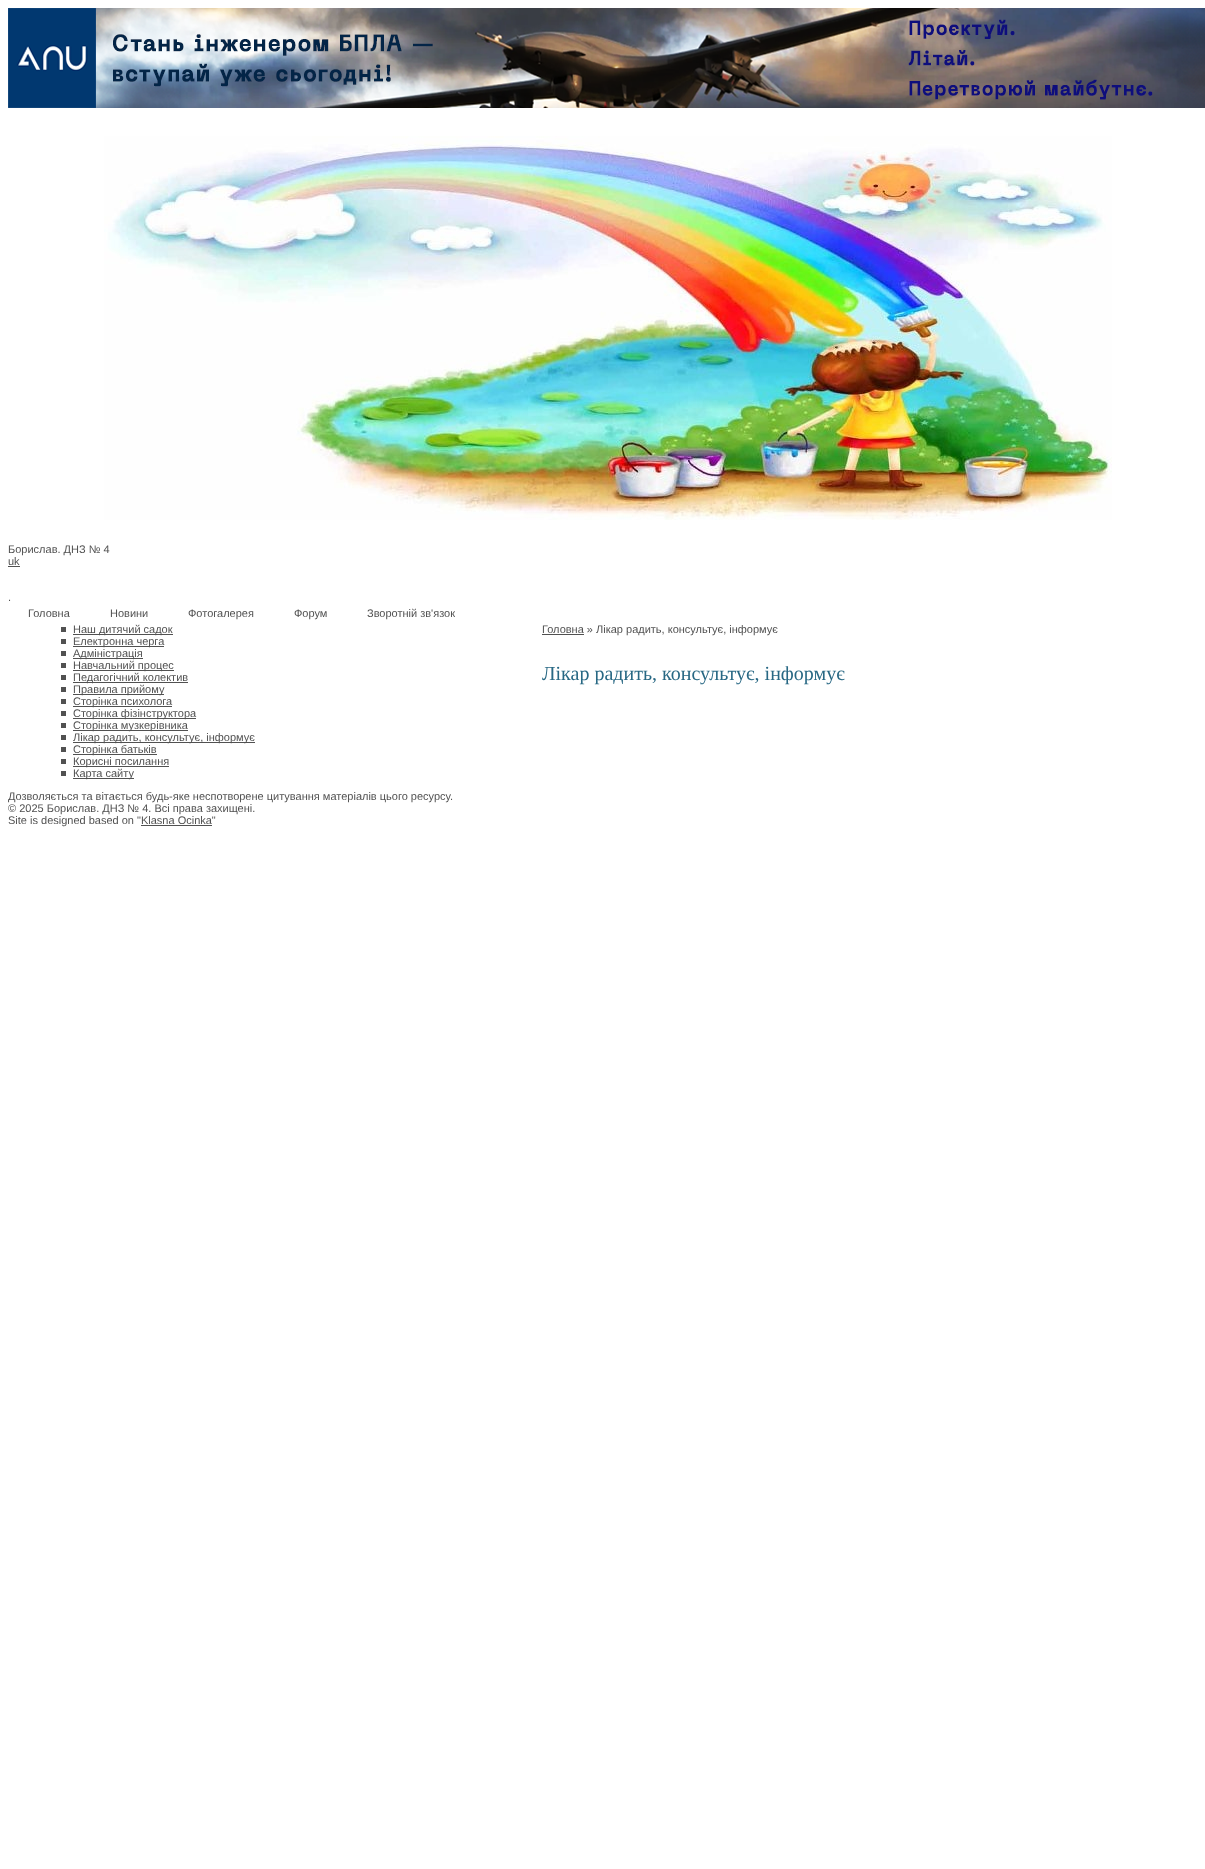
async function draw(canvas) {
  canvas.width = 1205
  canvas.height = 1869
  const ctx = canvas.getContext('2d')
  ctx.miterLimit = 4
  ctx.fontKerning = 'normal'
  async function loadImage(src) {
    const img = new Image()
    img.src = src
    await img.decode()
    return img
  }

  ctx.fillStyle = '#fff'
  ctx.fillRect(0, 0, 1205, 1869)
  ctx.drawImage(await loadImage('image0.png'), 8, 8, 1197, 100)
  ctx.drawImage(await loadImage('image1.png'), 104, 136, 1008, 384)
  ctx.font = '11px Liberation Sans'
  ctx.fillStyle = '#515151'
  ctx.fillText('Борислав. ДНЗ № 4', 8, 553)
  ctx.fillText('uk', 8, 565)
  ctx.fillRect(8, 566, 12, 1)
  ctx.fillText('.', 8, 601)
  ctx.fillText('Головна', 28, 617)
  ctx.fillText('Новини', 110, 617)
  ctx.fillText('Фотогалерея', 188, 617)
  ctx.fillText('Форум', 294, 617)
  ctx.fillText('Зворотній зв\'язок', 367, 617)
  ctx.fillRect(61, 627, 5, 5)
  ctx.fillRect(73, 634, 100, 1)
  ctx.fillText('Наш дитячий садок', 73, 633)
  ctx.fillRect(61, 639, 5, 5)
  ctx.fillRect(73, 646, 91, 1)
  ctx.fillText('Електронна черга', 73, 645)
  ctx.fillRect(61, 651, 5, 5)
  ctx.fillRect(73, 658, 70, 1)
  ctx.fillText('Адміністрація', 73, 657)
  ctx.fillRect(61, 663, 5, 5)
  ctx.fillRect(73, 670, 101, 1)
  ctx.fillText('Навчальний процес', 73, 669)
  ctx.fillRect(61, 675, 5, 5)
  ctx.fillRect(73, 682, 115, 1)
  ctx.fillText('Педагогічний колектив', 73, 681)
  ctx.fillRect(61, 687, 5, 5)
  ctx.fillRect(73, 694, 91, 1)
  ctx.fillText('Правила прийому', 73, 693)
  ctx.fillRect(61, 699, 5, 5)
  ctx.fillRect(73, 706, 99, 1)
  ctx.fillText('Сторінка психолога', 73, 705)
  ctx.fillRect(61, 711, 5, 5)
  ctx.fillRect(73, 718, 123, 1)
  ctx.fillText('Сторінка фізінструктора', 73, 717)
  ctx.fillRect(61, 723, 5, 5)
  ctx.fillRect(73, 730, 115, 1)
  ctx.fillText('Сторінка музкерівника', 73, 729)
  ctx.fillRect(61, 735, 5, 5)
  ctx.fillRect(73, 742, 182, 1)
  ctx.fillText('Лікар радить, консультує, інформує', 73, 741)
  ctx.fillRect(61, 747, 5, 5)
  ctx.fillRect(73, 754, 84, 1)
  ctx.fillText('Сторінка батьків', 73, 753)
  ctx.fillRect(61, 759, 5, 5)
  ctx.fillRect(73, 766, 96, 1)
  ctx.fillText('Корисні посилання', 73, 765)
  ctx.fillRect(61, 771, 5, 5)
  ctx.fillRect(73, 778, 61, 1)
  ctx.fillText('Карта сайту', 73, 777)
  ctx.fillRect(542, 634, 42, 1)
  ctx.fillText('Головна » Лікар радить, консультує, інформує', 542, 633)
  ctx.font = '20px Liberation Serif'
  ctx.fillStyle = '#286884'
  ctx.fillText('Лікар радить, консультує, інформує', 542, 680)
  ctx.font = '11px Liberation Sans'
  ctx.fillStyle = '#515151'
  ctx.fillText('Дозволяється та вітається будь-яке неспотворене цитування матеріалів цього ресурсу.', 8, 800)
  ctx.fillText('© 2025 Борислав. ДНЗ № 4. Всі права захищені.', 8, 812)
  ctx.fillText('Site is designed based on "Klasna Ocinka"', 8, 824)
  ctx.fillRect(141, 825, 71, 1)
}

draw(document.querySelector('canvas'))
